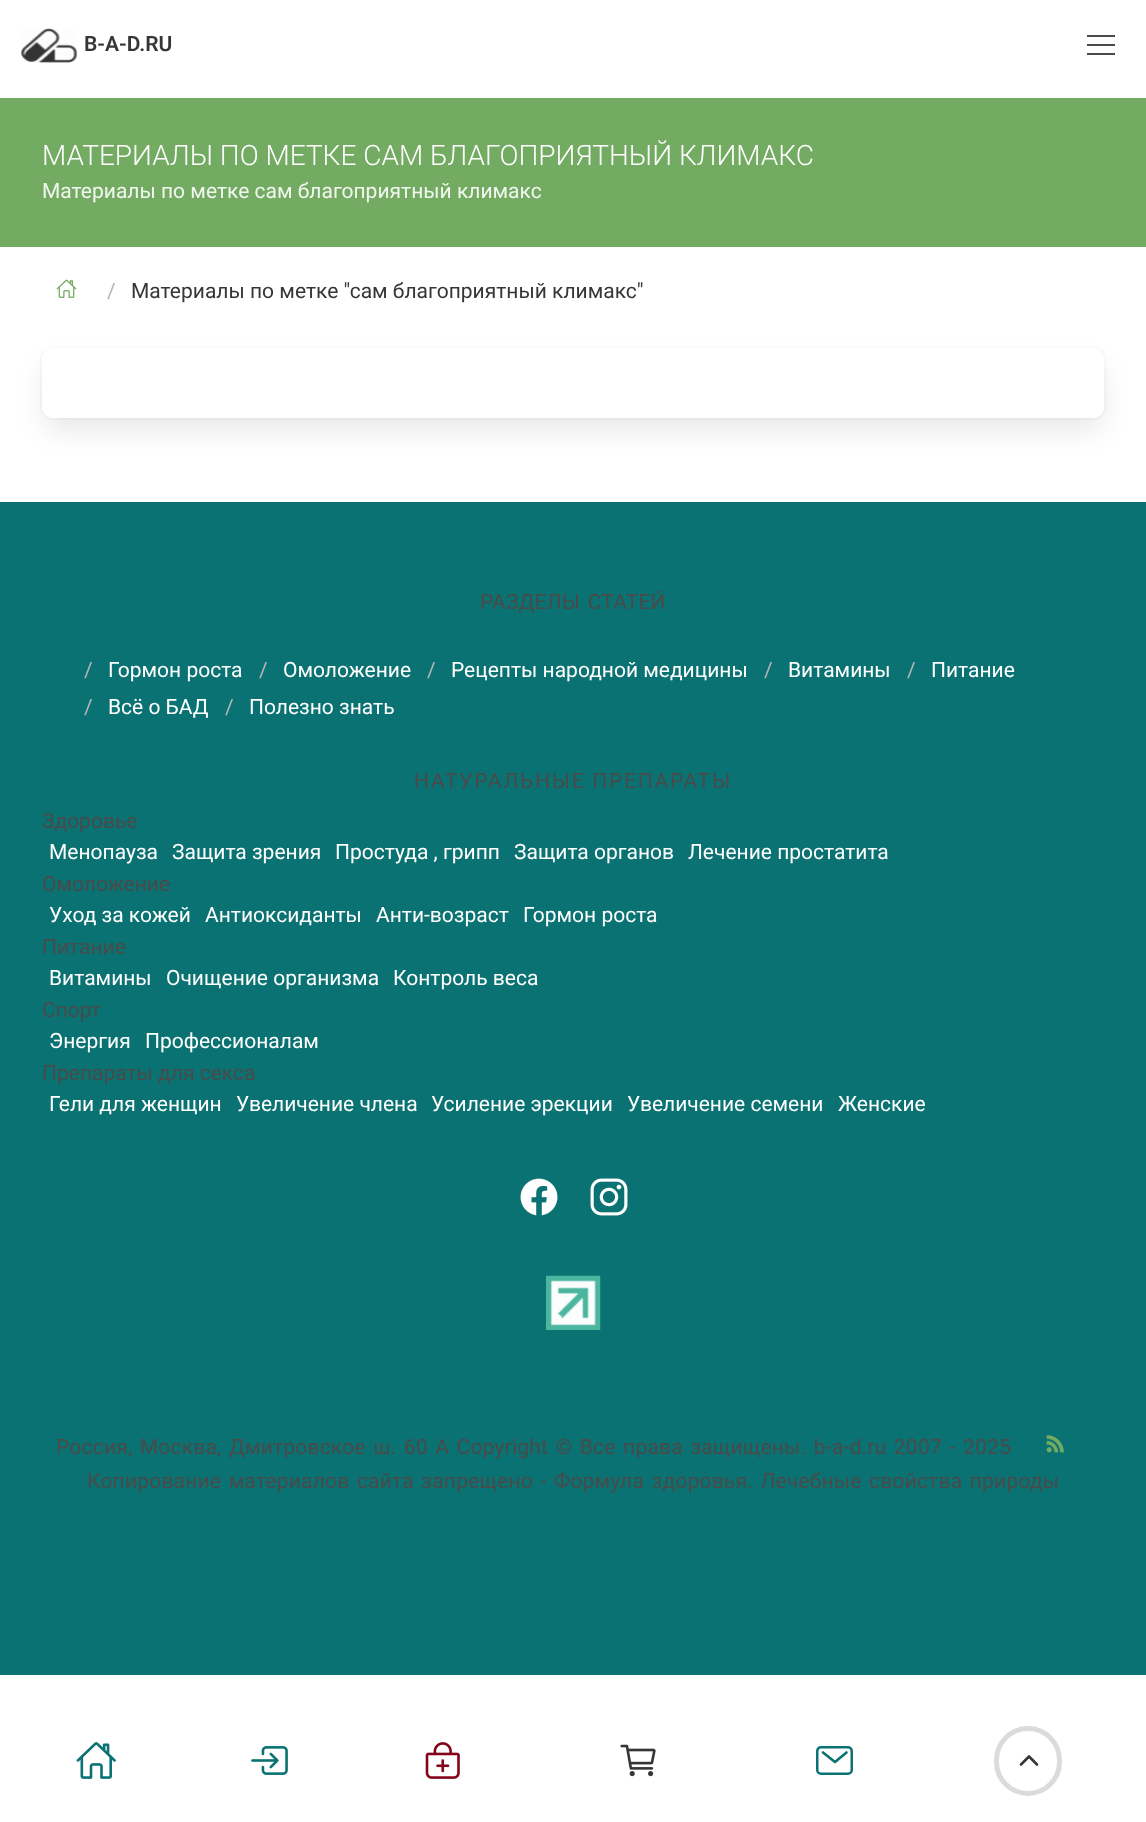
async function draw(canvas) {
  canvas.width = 1146
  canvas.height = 1822
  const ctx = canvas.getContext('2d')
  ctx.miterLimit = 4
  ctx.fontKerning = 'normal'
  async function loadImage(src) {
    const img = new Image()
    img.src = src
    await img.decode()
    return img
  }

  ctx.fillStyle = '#fff'
  ctx.fillRect(0, 0, 1146, 1822)
  ctx.drawImage(await loadImage('image0.png'), 21, 28, 56, 35)
  ctx.font = '600 21px Roboto'
  ctx.fillStyle = '#363636'
  ctx.fillText('B-A-D.RU', 84, 51)
  ctx.fillStyle = '#4a4a4a'
  ctx.fillRect(1087, 35, 28, 2)
  ctx.fillRect(1087, 44, 28, 2)
  ctx.fillRect(1087, 53, 28, 2)
  ctx.fillStyle = '#74ab63'
  ctx.fillRect(0, 98, 1146, 149)
  ctx.font = '300 28px Roboto'
  ctx.fillStyle = '#fff'
  ctx.fillText('МАТЕРИАЛЫ ПО МЕТКЕ САМ БЛАГОПРИЯТНЫЙ КЛИМАКС', 42, 165)
  ctx.font = '21px Roboto'
  ctx.fillStyle = '#f1f7ef'
  ctx.fillText('Материалы по метке сам благоприятный климакс', 42, 198)
  ctx.drawImage(await loadImage('image1.png'), 56, 279, 21, 19)
  ctx.fillStyle = '#b5b5b5'
  ctx.fillText('/', 107, 298)
  ctx.fillStyle = '#363636'
  ctx.fillText('Материалы по метке "сам благоприятный климакс"', 131, 298)
  ctx.beginPath()
  ctx.roundRect(41, 348, 1064, 71, 11)
  ctx.strokeStyle = '#fafafa'
  ctx.lineWidth = 2
  ctx.stroke()
  ctx.fillStyle = '#0a0a0a1a'
  ctx.filter = 'blur(14px)'
  ctx.beginPath()
  ctx.roundRect(46, 366, 1055, 63, 7)
  ctx.fill()
  ctx.filter = 'none'
  ctx.fillStyle = '#fff'
  ctx.beginPath()
  ctx.roundRect(42, 348, 1062, 70, 11)
  ctx.fill()
  ctx.fillStyle = '#0a7272'
  ctx.fillRect(0, 502, 1146, 1173)
  ctx.letterSpacing = '0.2px'
  ctx.wordSpacing = '2.1px'
  ctx.fillStyle = '#4a4a4a'
  ctx.fillText('РАЗДЕЛЫ СТАТЕЙ', 480, 609)
  ctx.letterSpacing = '0px'
  ctx.wordSpacing = '0px'
  ctx.fillStyle = '#b5b5b5'
  ctx.fillText('/', 84, 677)
  ctx.fillStyle = '#fff'
  ctx.fillText('Гормон роста', 108, 677)
  ctx.fillStyle = '#b5b5b5'
  ctx.fillText('/', 259, 677)
  ctx.fillStyle = '#fff'
  ctx.fillText('Омоложение', 283, 677)
  ctx.fillStyle = '#b5b5b5'
  ctx.fillText('/', 427, 677)
  ctx.fillStyle = '#fff'
  ctx.fillText('Рецепты народной медицины', 451, 677)
  ctx.fillStyle = '#b5b5b5'
  ctx.fillText('/', 764, 677)
  ctx.fillStyle = '#fff'
  ctx.fillText('Витамины', 788, 677)
  ctx.fillStyle = '#b5b5b5'
  ctx.fillText('/', 907, 677)
  ctx.fillStyle = '#fff'
  ctx.fillText('Питание', 931, 677)
  ctx.fillStyle = '#b5b5b5'
  ctx.fillText('/', 84, 714)
  ctx.fillStyle = '#fff'
  ctx.fillText('Всё о БАД', 108, 714)
  ctx.fillStyle = '#b5b5b5'
  ctx.fillText('/', 225, 714)
  ctx.fillStyle = '#fff'
  ctx.fillText('Полезно знать', 249, 714)
  ctx.letterSpacing = '1.75px'
  ctx.fillStyle = '#4a4a4a'
  ctx.fillText('НАТУРАЛЬНЫЕ ПРЕПАРАТЫ', 414, 788)
  ctx.letterSpacing = '0px'
  ctx.fillText('Здоровье', 42, 828)
  ctx.fillStyle = '#fff'
  ctx.fillText('Менопауза', 49, 859)
  ctx.fillText('Защита зрения', 172, 859)
  ctx.fillText('Простуда , грипп', 335, 859)
  ctx.fillText('Защита органов', 514, 859)
  ctx.fillText('Лечение простатита', 688, 859)
  ctx.fillStyle = '#4a4a4a'
  ctx.fillText('Омоложение', 42, 891)
  ctx.fillStyle = '#fff'
  ctx.fillText('Уход за кожей', 49, 922)
  ctx.fillText('Антиоксиданты', 205, 922)
  ctx.fillText('Анти-возраст', 376, 922)
  ctx.fillText('Гормон роста', 523, 922)
  ctx.fillStyle = '#4a4a4a'
  ctx.fillText('Питание', 42, 954)
  ctx.fillStyle = '#fff'
  ctx.fillText('Витамины', 49, 985)
  ctx.fillText('Очищение организма', 166, 985)
  ctx.fillText('Контроль веса', 393, 985)
  ctx.fillStyle = '#4a4a4a'
  ctx.fillText('Спорт', 42, 1017)
  ctx.fillStyle = '#fff'
  ctx.fillText('Энергия', 49, 1048)
  ctx.fillText('Профессионалам', 145, 1048)
  ctx.fillStyle = '#4a4a4a'
  ctx.fillText('Препараты для секса', 42, 1080)
  ctx.fillStyle = '#fff'
  ctx.fillText('Гели для женщин', 49, 1111)
  ctx.fillText('Увеличение члена', 236, 1111)
  ctx.fillText('Усиление эрекции', 431, 1111)
  ctx.fillText('Увеличение семени', 627, 1111)
  ctx.fillText('Женские', 838, 1111)
  ctx.drawImage(await loadImage('image2.png'), 520, 1178, 38, 38)
  ctx.drawImage(await loadImage('image3.png'), 590, 1178, 38, 38)
  ctx.drawImage(await loadImage('image4.png'), 546, 1275, 55, 55)
  ctx.letterSpacing = '0.2px'
  ctx.wordSpacing = '2.1px'
  ctx.fillStyle = '#4a4a4a'
  ctx.fillText('Россия, Москва, Дмитровское ш. 60 А Copyright © Все права защищены. b-a-d.ru 2007 - 2025', 56, 1454)
  ctx.drawImage(await loadImage('image5.png'), 1046, 1435, 18, 18)
  ctx.fillText('Копирование материалов сайта запрещено -', 87, 1488)
  ctx.fillText('Формула здоровья. Лечебные свойства природы', 554, 1488)
  ctx.drawImage(await loadImage('image6.png'), 76, 1742, 40, 37)
  ctx.drawImage(await loadImage('image7.png'), 251, 1746, 37, 29)
  ctx.drawImage(await loadImage('image8.png'), 425, 1742, 35, 37)
  ctx.drawImage(await loadImage('image9.png'), 620, 1744, 36, 33)
  ctx.beginPath()
  ctx.roundRect(817.25, 1747.25, 34.5, 26.5, 3.75)
  ctx.strokeStyle = '#0a7272'
  ctx.lineWidth = 2.5
  ctx.stroke()
  ctx.beginPath()
  ctx.moveTo(823, 1752.5)
  ctx.lineTo(835, 1762)
  ctx.lineTo(846.5, 1752.5)
  ctx.lineWidth = 2.6
  ctx.lineCap = 'round'
  ctx.lineJoin = 'round'
  ctx.stroke()
  ctx.beginPath()
  ctx.roundRect(996.5, 1728.5, 63, 65, 31.5)
  ctx.strokeStyle = '#dbdbdb'
  ctx.lineWidth = 5
  ctx.lineJoin = 'miter'
  ctx.stroke()
  ctx.beginPath()
  ctx.moveTo(1021, 1764.5)
  ctx.lineTo(1029, 1756.5)
  ctx.lineTo(1037, 1764.5)
  ctx.strokeStyle = '#363636'
  ctx.lineWidth = 2.6
  ctx.lineJoin = 'round'
  ctx.stroke()
}

draw(document.querySelector('canvas'))
